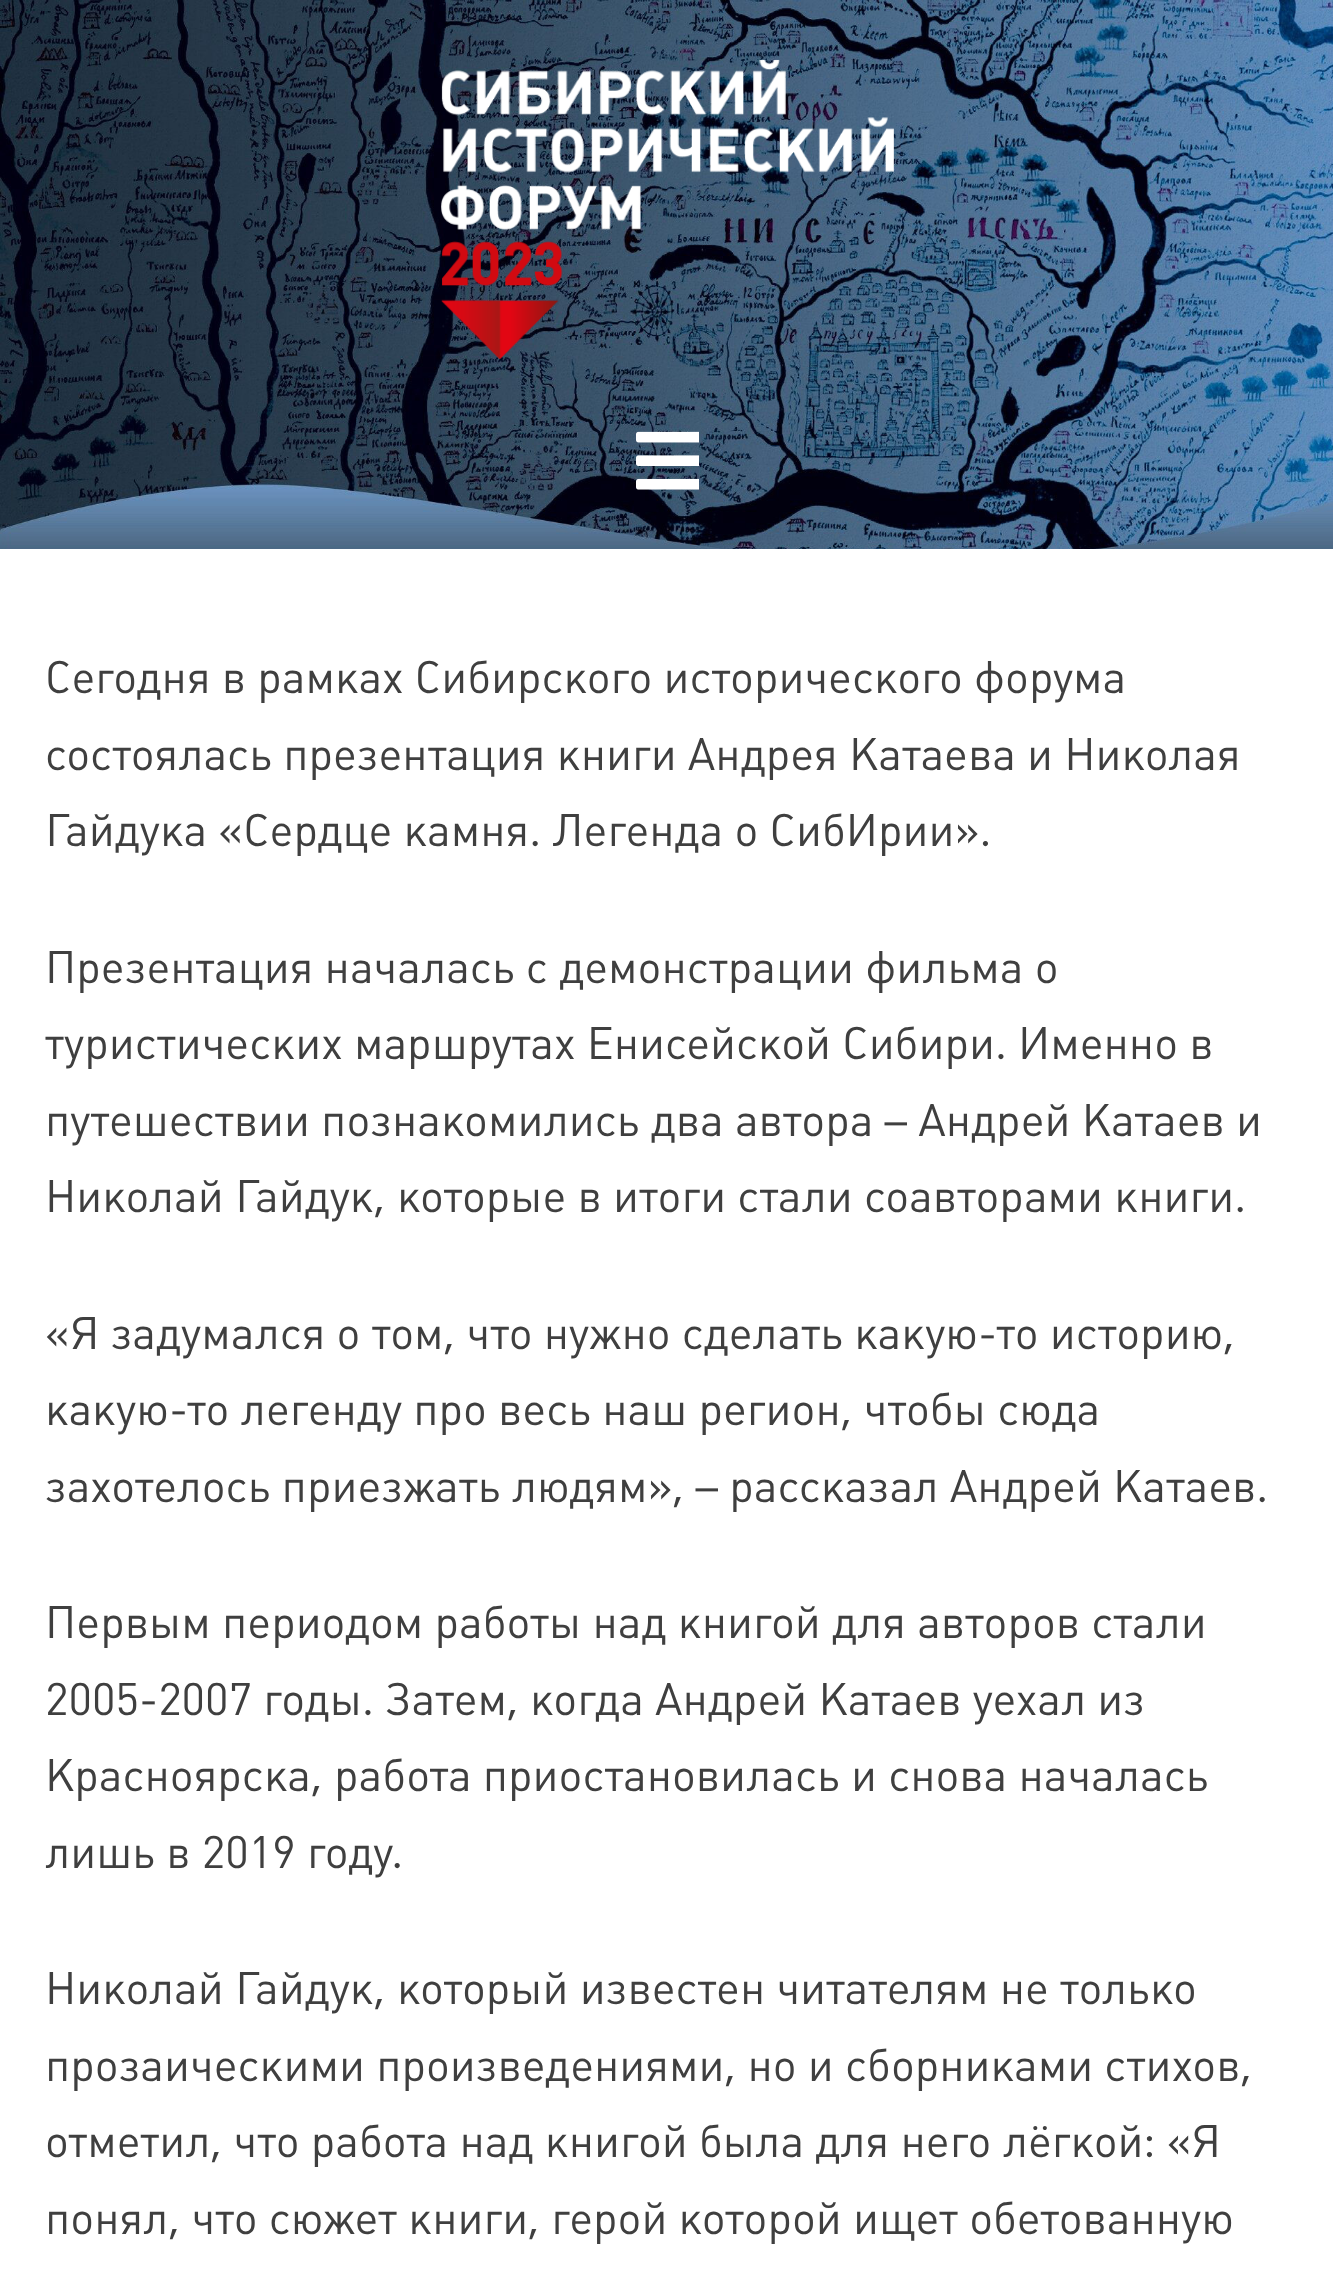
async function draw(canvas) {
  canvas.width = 1333
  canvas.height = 2283
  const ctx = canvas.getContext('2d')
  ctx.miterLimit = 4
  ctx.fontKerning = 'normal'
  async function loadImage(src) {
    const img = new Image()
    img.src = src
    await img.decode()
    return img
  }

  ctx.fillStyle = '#fff'
  ctx.fillRect(0, 0, 1333, 2283)
  ctx.drawImage(await loadImage('image0.png'), 0, 0, 1333, 549)
  ctx.drawImage(await loadImage('image1.png'), 441, 60, 453, 299)
  ctx.drawImage(await loadImage('image2.png'), 636, 431, 63, 59)
  ctx.font = '45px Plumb'
  ctx.fillStyle = '#3f3f3f'
  ctx.fillText('Сегодня в рамках Сибирского исторического форума', 45, 693)
  ctx.fillText('состоялась презентация книги Андрея Катаева и Николая', 45, 770)
  ctx.fillText('Гайдука «Сердце камня. Легенда о СибИрии».', 45, 846)
  ctx.fillText('Презентация началась с демонстрации фильма о', 45, 983)
  ctx.fillText('туристических маршрутах Енисейской Сибири. Именно в', 45, 1059)
  ctx.fillText('путешествии познакомились два автора – Андрей Катаев и', 45, 1136)
  ctx.fillText('Николай Гайдук, которые в итоги стали соавторами книги.', 45, 1212)
  ctx.fillText('«Я задумался о том, что нужно сделать какую-то историю,', 45, 1349)
  ctx.fillText('какую-то легенду про весь наш регион, чтобы сюда', 45, 1425)
  ctx.fillText('захотелось приезжать людям», – рассказал Андрей Катаев.', 45, 1502)
  ctx.fillText('Первым периодом работы над книгой для авторов стали', 45, 1638)
  ctx.fillText('2005-2007 годы. Затем, когда Андрей Катаев уехал из', 45, 1715)
  ctx.fillText('Красноярска, работа приостановилась и снова началась', 45, 1791)
  ctx.fillText('лишь в 2019 году.', 45, 1868)
  ctx.fillText('Николай Гайдук, который известен читателям не только', 45, 2004)
  ctx.fillText('прозаическими произведениями, но и сборниками стихов,', 45, 2081)
  ctx.fillText('отметил, что работа над книгой была для него лёгкой: «Я', 45, 2157)
  ctx.fillText('понял, что сюжет книги, герой которой ищет обетованную', 45, 2234)
}

draw(document.querySelector('canvas'))
